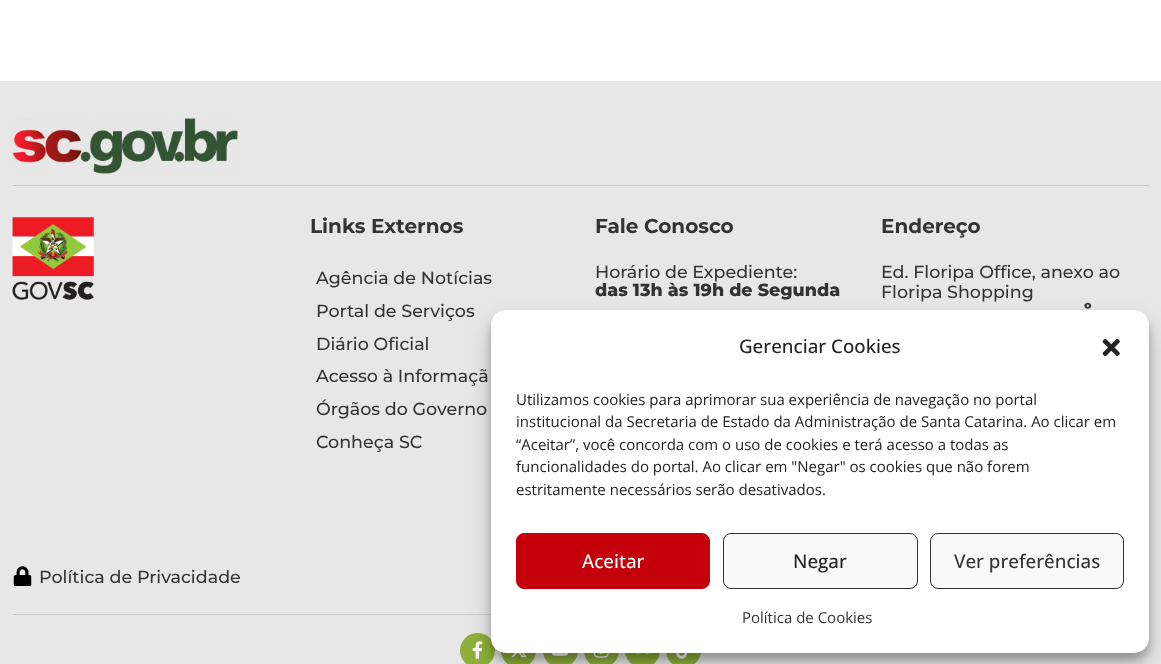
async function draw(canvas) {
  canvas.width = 1161
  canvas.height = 664
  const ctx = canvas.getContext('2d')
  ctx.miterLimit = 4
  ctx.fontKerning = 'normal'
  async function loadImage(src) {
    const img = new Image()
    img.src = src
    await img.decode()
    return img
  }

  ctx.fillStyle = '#fff'
  ctx.fillRect(0, 0, 1161, 664)
  ctx.fillStyle = '#e7e7e7'
  ctx.fillRect(0, 81, 1161, 583)
  ctx.drawImage(await loadImage('image0.png'), 12, 118, 226, 56)
  ctx.fillStyle = '#c9c9c9'
  ctx.fillRect(13, 185, 1136, 1)
  ctx.drawImage(await loadImage('image1.png'), 12, 217, 82, 83)
  ctx.font = 'bold 20px Montserrat'
  ctx.fillStyle = '#333'
  ctx.fillText('Links Externos', 310, 233)
  ctx.font = '500 17.5px Montserrat'
  ctx.fillText('Agência de Notícias', 316, 284)
  ctx.fillText('Portal de Serviços', 316, 317)
  ctx.fillText('Diário Oficial', 316, 350)
  ctx.fillText('Acesso à Informaçã', 316, 382)
  ctx.fillText('Órgãos do Governo', 316, 415)
  ctx.fillText('Conheça SC', 316, 448)
  ctx.font = 'bold 20px Montserrat'
  ctx.fillText('Fale Conosco', 595, 233)
  ctx.font = '500 17.5px Montserrat'
  ctx.fillText('Horário de Expediente:', 595, 278)
  ctx.font = '800 17.5px Montserrat'
  ctx.fillText('das 13h às 19h de Segunda', 595, 296)
  ctx.font = 'bold 20px Montserrat'
  ctx.fillText('Endereço', 881, 233)
  ctx.font = '500 17.5px Montserrat'
  ctx.fillText('Ed. Floripa Office, anexo ao', 881, 278)
  ctx.fillText('Floripa Shopping', 881, 298)
  ctx.font = '800 17.5px Montserrat'
  ctx.fillText('º', 1084, 316)
  ctx.drawImage(await loadImage('image2.png'), 13, 566, 19, 20)
  ctx.font = '500 17.5px Montserrat'
  ctx.fillText('Política de Privacidade', 39, 583)
  ctx.fillStyle = '#c9c9c9'
  ctx.fillRect(13, 614, 478, 1)
  ctx.fillStyle = '#8fb13a'
  ctx.beginPath()
  ctx.arc(477.5, 650.5, 17.5, 0, 2 * Math.PI)
  ctx.fill()
  ctx.drawImage(await loadImage('image3.png'), 472, 641, 11, 18)
  ctx.beginPath()
  ctx.arc(518.5, 650.5, 17.5, 0, 2 * Math.PI)
  ctx.fill()
  ctx.drawImage(await loadImage('image4.png'), 511, 653, 16, 5)
  ctx.beginPath()
  ctx.arc(560.5, 650.5, 17.5, 0, 2 * Math.PI)
  ctx.fill()
  ctx.drawImage(await loadImage('image5.png'), 551, 653, 18, 3)
  ctx.beginPath()
  ctx.arc(601.5, 650.5, 17.5, 0, 2 * Math.PI)
  ctx.fill()
  ctx.drawImage(await loadImage('image6.png'), 593, 653, 16, 5)
  ctx.beginPath()
  ctx.arc(642.5, 650.5, 17.5, 0, 2 * Math.PI)
  ctx.fill()
  ctx.drawImage(await loadImage('image7.png'), 635, 653, 15, 1)
  ctx.beginPath()
  ctx.arc(683.5, 650.5, 17.5, 0, 2 * Math.PI)
  ctx.fill()
  ctx.drawImage(await loadImage('image8.png'), 676, 653, 12, 6)
  ctx.fillStyle = '#0000003b'
  ctx.filter = 'blur(4px)'
  ctx.beginPath()
  ctx.roundRect(491, 318, 658, 342, 15)
  ctx.fill()
  ctx.filter = 'none'
  ctx.fillStyle = '#00000030'
  ctx.filter = 'blur(12.5px)'
  ctx.beginPath()
  ctx.roundRect(491, 323, 658, 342, 15)
  ctx.fill()
  ctx.filter = 'none'
  ctx.fillStyle = '#fff'
  ctx.beginPath()
  ctx.roundRect(491, 310, 658, 343, 15)
  ctx.fill()
  ctx.font = '500 18.75px Open Sans'
  ctx.fillStyle = '#222'
  ctx.fillText('Gerenciar Cookies', 739, 353)
  ctx.drawImage(await loadImage('image9.png'), 1102, 338, 18, 19)
  ctx.font = '15px Open Sans'
  ctx.fillText('Utilizamos cookies para aprimorar sua experiência de navegação no portal', 516, 405)
  ctx.fillText('institucional da Secretaria de Estado da Administração de Santa Catarina. Ao clicar em', 516, 427)
  ctx.fillText('“Aceitar”, você concorda com o uso de cookies e terá acesso a todas as', 516, 450)
  ctx.fillText('funcionalidades do portal. Ao clicar em "Negar" os cookies que não forem', 516, 472)
  ctx.fillText('estritamente necessários serão desativados.', 516, 495)
  ctx.fillStyle = '#c4000b'
  ctx.beginPath()
  ctx.roundRect(516.5, 533.5, 193, 55, 7.5)
  ctx.fill()
  ctx.strokeStyle = '#c4000b'
  ctx.stroke()
  ctx.font = '500 18.75px Open Sans'
  ctx.fillStyle = '#fff'
  ctx.fillText('Aceitar', 582, 568)
  ctx.fillStyle = '#f9f9f9'
  ctx.beginPath()
  ctx.roundRect(723.5, 533.5, 194, 55, 7.5)
  ctx.fill()
  ctx.strokeStyle = '#333'
  ctx.stroke()
  ctx.fillStyle = '#222'
  ctx.fillText('Negar', 793, 568)
  ctx.fillStyle = '#f9f9f9'
  ctx.beginPath()
  ctx.roundRect(930.5, 533.5, 193, 55, 7.5)
  ctx.fill()
  ctx.stroke()
  ctx.fillStyle = '#333'
  ctx.fillText('Ver preferências', 954, 568)
  ctx.font = '15px Open Sans'
  ctx.fillText('Política de Cookies', 742, 623)
}

draw(document.querySelector('canvas'))
